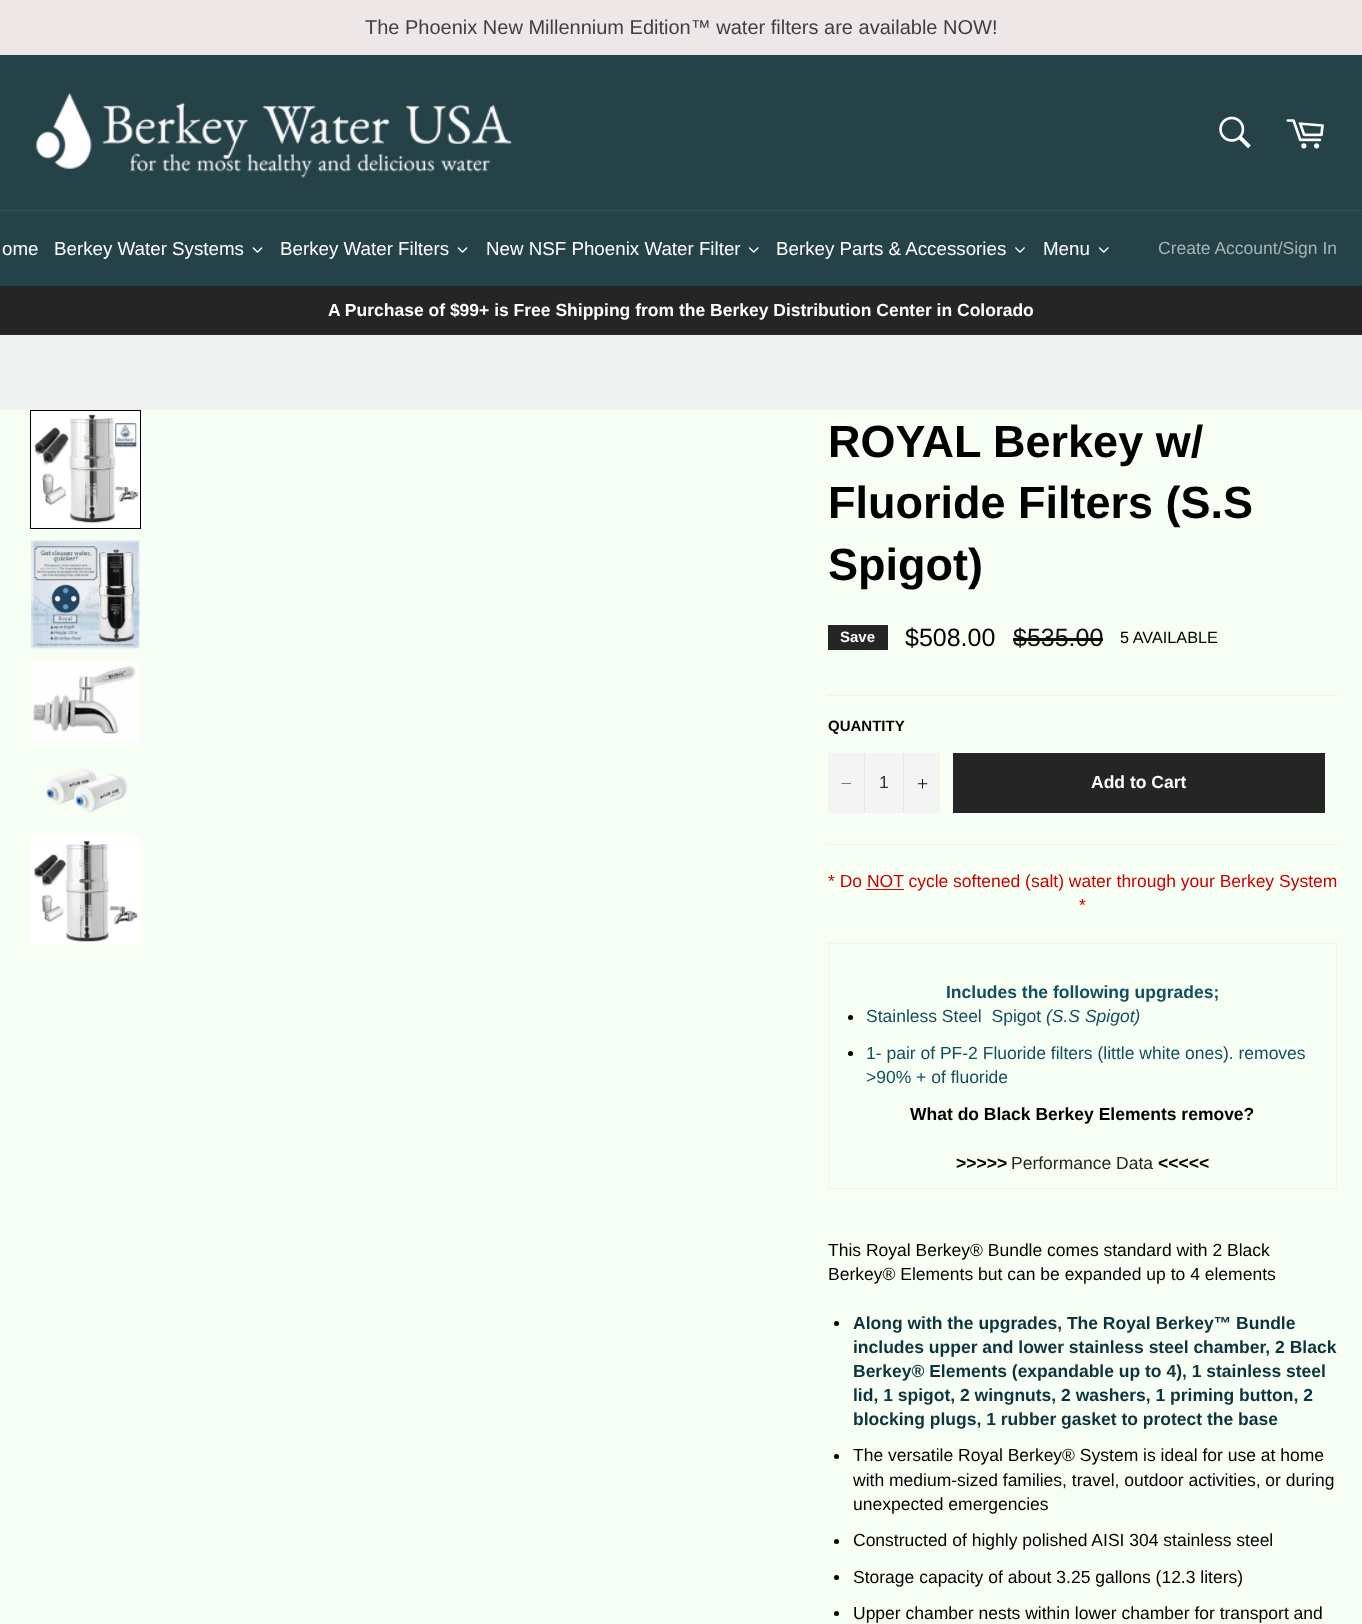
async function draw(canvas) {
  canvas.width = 1362
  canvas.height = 1624
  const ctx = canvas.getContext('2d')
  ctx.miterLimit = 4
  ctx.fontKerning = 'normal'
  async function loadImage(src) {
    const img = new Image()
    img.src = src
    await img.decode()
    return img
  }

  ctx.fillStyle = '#f0f2f2'
  ctx.fillRect(0, 0, 1362, 1624)
  ctx.fillStyle = '#254249'
  ctx.fillRect(0, 55, 1362, 231)
  ctx.fillStyle = '#ede7e7'
  ctx.fillRect(0, 0, 1362, 55)
  ctx.font = '20px Liberation Sans'
  ctx.fillStyle = '#3f3f3f'
  ctx.fillText('The Phoenix New Millennium Edition™ water filters are available NOW!', 365, 34)
  ctx.drawImage(await loadImage('image0.png'), 36, 92, 476, 86)
  ctx.drawImage(await loadImage('image1.png'), 1219, 116, 32, 33)
  ctx.drawImage(await loadImage('image2.png'), 1286, 119, 38, 30)
  ctx.fillStyle = '#2e515a'
  ctx.fillRect(0, 210, 1362, 1)
  ctx.font = '18.75px Liberation Sans'
  ctx.fillStyle = '#fff'
  ctx.fillText('ome', 2, 255)
  ctx.fillText('Berkey Water Systems', 54, 255)
  ctx.drawImage(await loadImage('image3.png'), 252, 247, 11, 6)
  ctx.fillText('Berkey Water Filters', 280, 255)
  ctx.drawImage(await loadImage('image3.png'), 457, 247, 11, 6)
  ctx.fillText('New NSF Phoenix Water Filter', 486, 255)
  ctx.drawImage(await loadImage('image4.png'), 748, 247, 11, 6)
  ctx.fillText('Berkey Parts & Accessories', 776, 255)
  ctx.drawImage(await loadImage('image5.png'), 1015, 247, 10, 6)
  ctx.fillText('Menu', 1043, 255)
  ctx.drawImage(await loadImage('image4.png'), 1098, 247, 11, 6)
  ctx.font = '17.5px Liberation Sans'
  ctx.fillStyle = '#a8b3b6'
  ctx.fillText('Create Account/Sign In', 1158, 254)
  ctx.fillStyle = '#252525'
  ctx.fillRect(0, 286, 1362, 49)
  ctx.font = 'bold 17.5px Liberation Sans'
  ctx.fillStyle = '#fff'
  ctx.fillText('A Purchase of $99+ is Free Shipping from the Berkey Distribution Center in Colorado', 328, 316)
  ctx.fillStyle = '#f7fff5'
  ctx.fillRect(0, 410, 1362, 1214)
  ctx.strokeStyle = '#000'
  ctx.strokeRect(30.5, 410.5, 110, 118)
  ctx.drawImage(await loadImage('image6.png'), 31, 411, 109, 116)
  ctx.drawImage(await loadImage('image7.png'), 31, 540, 109, 109)
  ctx.drawImage(await loadImage('image8.png'), 31, 660, 109, 82)
  ctx.drawImage(await loadImage('image9.png'), 46, 768, 82, 45)
  ctx.drawImage(await loadImage('image10.png'), 31, 835, 109, 110)
  ctx.font = 'bold 45px Liberation Sans'
  ctx.fillStyle = '#000'
  ctx.fillText('ROYAL Berkey w/', 828, 457)
  ctx.fillText('Fluoride Filters (S.S', 828, 518)
  ctx.fillText('Spigot)', 828, 580)
  ctx.fillStyle = '#252525'
  ctx.fillRect(828, 625, 60, 25)
  ctx.font = 'bold 15px Liberation Sans'
  ctx.fillStyle = '#fff'
  ctx.fillText('Save', 840, 642)
  ctx.font = '25px Liberation Sans'
  ctx.fillStyle = '#000'
  ctx.fillText('$508.00', 905, 646)
  ctx.fillStyle = '#0d0d0d'
  ctx.fillText('$535.00', 1013, 646)
  ctx.fillRect(1013, 638, 90, 3)
  ctx.font = '16.25px Liberation Sans'
  ctx.fillStyle = '#000'
  ctx.fillText('5 AVAILABLE', 1120, 643)
  ctx.fillStyle = '#f0f2f2'
  ctx.fillRect(828, 695, 510, 1)
  ctx.font = 'bold 15px Liberation Sans'
  ctx.fillStyle = '#000'
  ctx.fillText('QUANTITY', 828, 731)
  ctx.fillStyle = '#f4f4f4'
  ctx.fillRect(828, 753, 112, 60)
  ctx.fillStyle = '#e7e7e7'
  ctx.fillRect(864, 753, 1, 60)
  ctx.fillStyle = '#000'
  ctx.beginPath()
  ctx.moveTo(851, 783.5)
  ctx.lineTo(851, 784)
  ctx.lineTo(841.5, 784)
  ctx.lineTo(841.5, 783.5)
  ctx.closePath()
  ctx.fill('evenodd')
  ctx.font = '17.5px Liberation Sans'
  ctx.fillStyle = '#333'
  ctx.fillText('1', 879, 788)
  ctx.fillStyle = '#e7e7e7'
  ctx.fillRect(903, 753, 1, 60)
  ctx.drawImage(await loadImage('image11.png'), 918, 779, 10, 10)
  ctx.fillStyle = '#252525'
  ctx.fillRect(953, 753, 372, 60)
  ctx.font = 'bold 17.5px Liberation Sans'
  ctx.fillStyle = '#fff'
  ctx.fillText('Add to Cart', 1091, 788)
  ctx.fillStyle = '#f0f2f2'
  ctx.fillRect(828, 844, 510, 1)
  ctx.font = '17.5px Liberation Sans'
  ctx.fillStyle = '#c00'
  ctx.fillText('* Do NOT cycle softened (salt) water through your Berkey System', 828, 887)
  ctx.fillRect(866, 889, 38, 1)
  ctx.fillText('*', 1079, 911)
  ctx.fillStyle = '#f0f2f2'
  ctx.fillRect(828, 943, 510, 1)
  ctx.fillRect(1336, 943, 1, 246)
  ctx.fillRect(828, 1188, 510, 1)
  ctx.fillRect(828, 943, 1, 246)
  ctx.font = 'bold 17.5px Liberation Sans'
  ctx.fillStyle = '#134f5c'
  ctx.fillText('Includes the following upgrades;', 946, 998)
  ctx.fillStyle = '#000'
  ctx.beginPath()
  ctx.arc(850.5, 1017.5, 2.5, 0, 2 * Math.PI)
  ctx.fill()
  ctx.font = '17.5px Liberation Sans'
  ctx.fillStyle = '#134f5c'
  ctx.fillText('Stainless Steel  Spigot', 866, 1022)
  ctx.font = 'italic 17.5px Liberation Sans'
  ctx.fillText('(S.S Spigot)', 1046, 1022)
  ctx.fillStyle = '#000'
  ctx.beginPath()
  ctx.arc(850.5, 1053.5, 2.5, 0, 2 * Math.PI)
  ctx.fill()
  ctx.font = '17.5px Liberation Sans'
  ctx.fillStyle = '#134f5c'
  ctx.fillText('1- pair of PF-2 Fluoride filters (little white ones). removes', 866, 1059)
  ctx.fillText('>90% + of fluoride', 866, 1083)
  ctx.font = 'bold 17.5px Liberation Sans'
  ctx.fillStyle = '#000'
  ctx.fillText('What do Black Berkey Elements remove?', 910, 1120)
  ctx.fillText('>>>>>', 956, 1169)
  ctx.font = '17.5px Liberation Sans'
  ctx.fillStyle = '#252525'
  ctx.fillText('Performance Data', 1011, 1169)
  ctx.font = 'bold 17.5px Liberation Sans'
  ctx.fillStyle = '#000'
  ctx.fillText('<<<<<', 1158, 1169)
  ctx.font = '17.5px Liberation Sans'
  ctx.fillText('This Royal Berkey® Bundle comes standard with 2 Black', 828, 1256)
  ctx.fillText('Berkey® Elements but can be expanded up to 4 elements', 828, 1280)
  ctx.beginPath()
  ctx.arc(836.5, 1323.5, 2.5, 0, 2 * Math.PI)
  ctx.fill()
  ctx.font = 'bold 17.5px Liberation Sans'
  ctx.fillStyle = '#0c343d'
  ctx.fillText('Along with the upgrades, The Royal Berkey™ Bundle', 853, 1329)
  ctx.fillText('includes upper and lower stainless steel chamber, 2 Black', 853, 1353)
  ctx.fillText('Berkey® Elements (expandable up to 4), 1 stainless steel', 853, 1377)
  ctx.fillText('lid, 1 spigot, 2 wingnuts, 2 washers, 1 priming button, 2', 853, 1401)
  ctx.fillText('blocking plugs, 1 rubber gasket to protect the base', 853, 1425)
  ctx.fillStyle = '#000'
  ctx.beginPath()
  ctx.arc(836.5, 1456.5, 2.5, 0, 2 * Math.PI)
  ctx.fill()
  ctx.font = '17.5px Liberation Sans'
  ctx.fillText('The versatile Royal Berkey® System is ideal for use at home', 853, 1461)
  ctx.fillText('with medium-sized families, travel, outdoor activities, or during', 853, 1486)
  ctx.fillText('unexpected emergencies', 853, 1510)
  ctx.beginPath()
  ctx.arc(836.5, 1541.5, 2.5, 0, 2 * Math.PI)
  ctx.fill()
  ctx.fillText('Constructed of highly polished AISI 304 stainless steel', 853, 1546)
  ctx.beginPath()
  ctx.arc(836.5, 1577.5, 2.5, 0, 2 * Math.PI)
  ctx.fill()
  ctx.fillText('Storage capacity of about 3.25 gallons (12.3 liters)', 853, 1583)
  ctx.beginPath()
  ctx.arc(836.5, 1613.5, 2.5, 0, 2 * Math.PI)
  ctx.fill()
  ctx.fillText('Upper chamber nests within lower chamber for transport and', 853, 1619)
}

draw(document.querySelector('canvas'))
